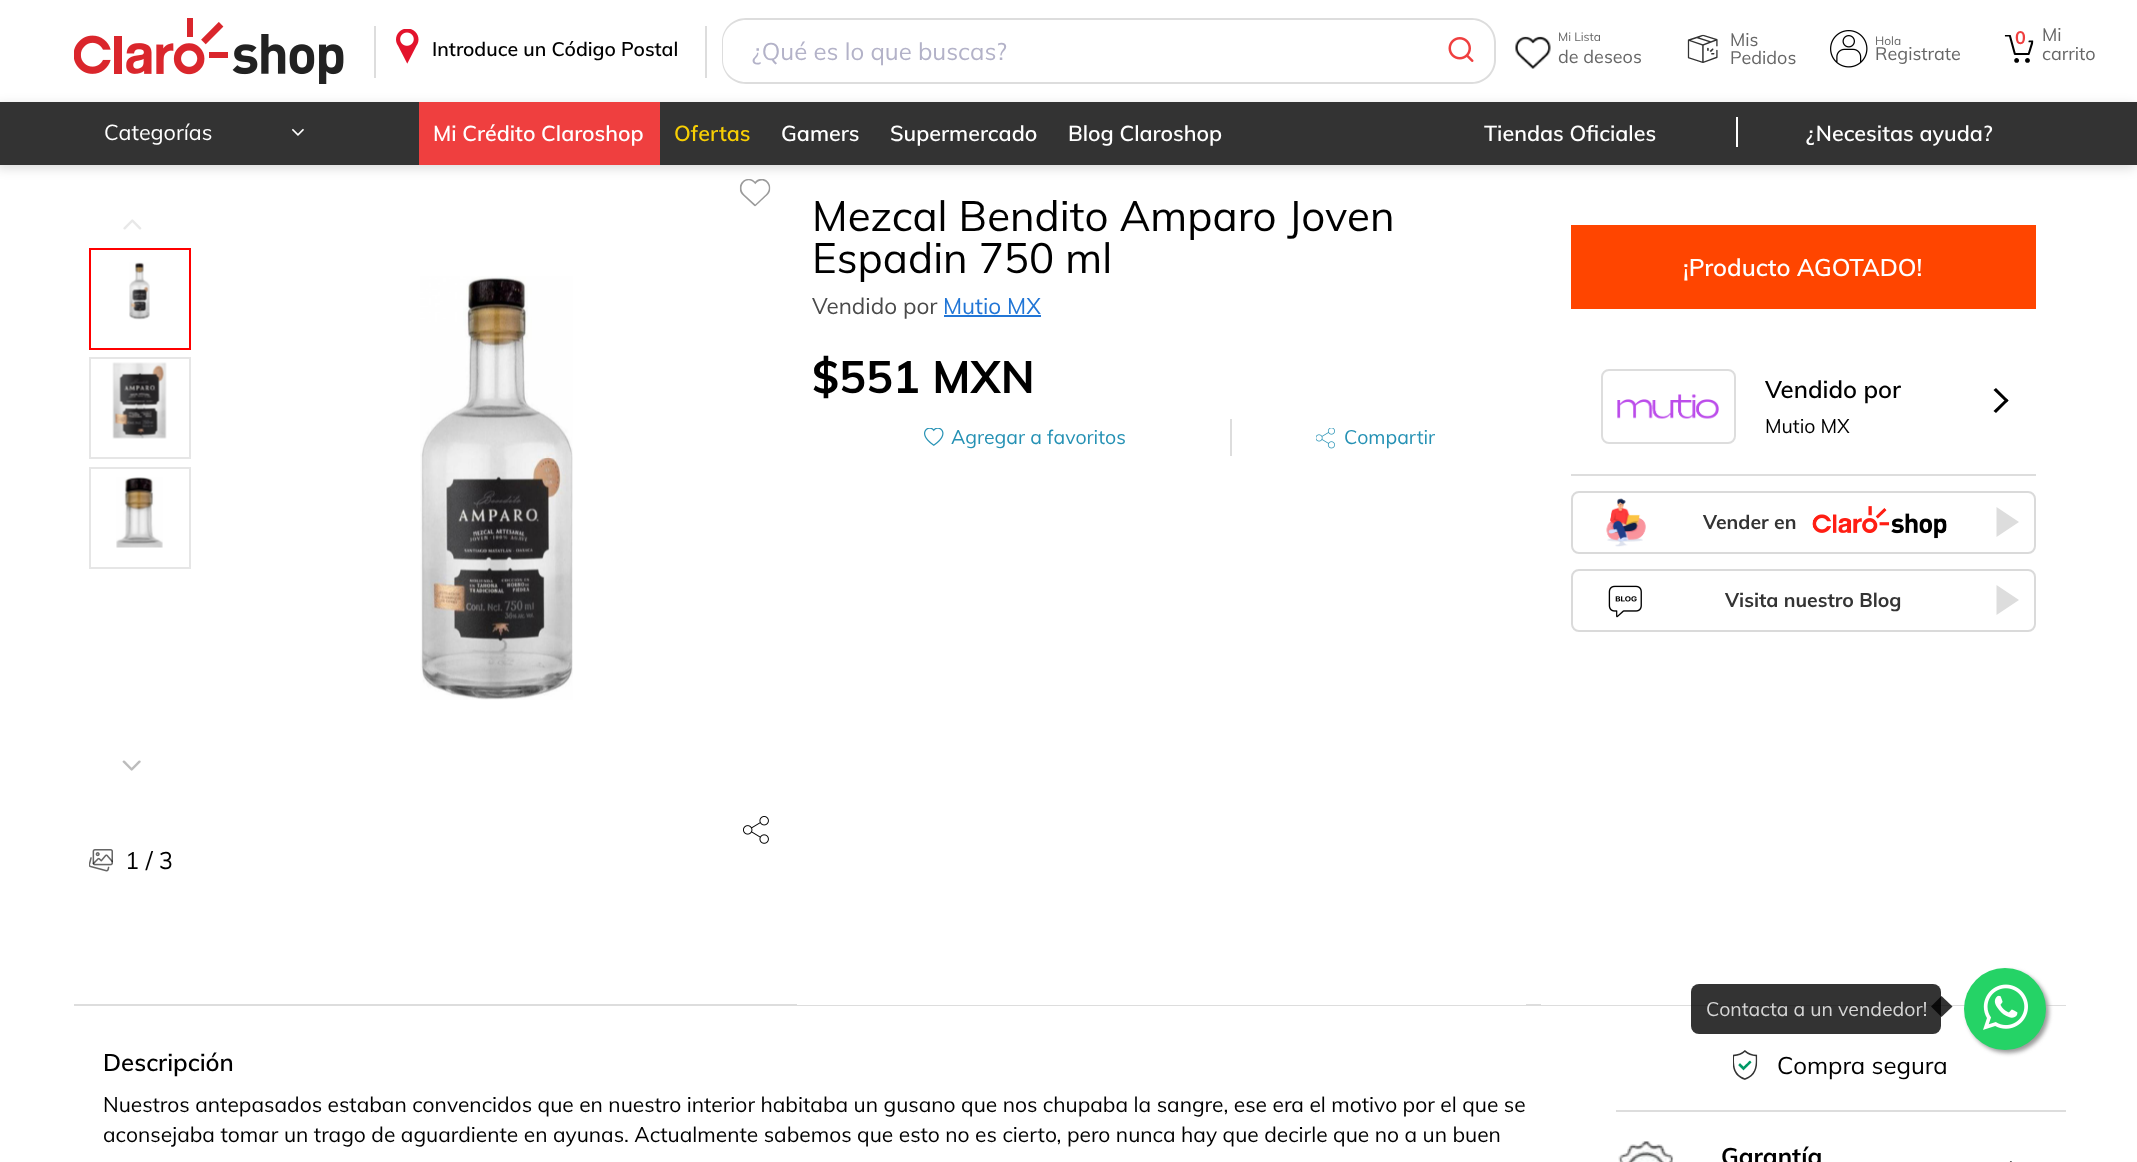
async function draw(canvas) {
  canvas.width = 2137
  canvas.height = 1162
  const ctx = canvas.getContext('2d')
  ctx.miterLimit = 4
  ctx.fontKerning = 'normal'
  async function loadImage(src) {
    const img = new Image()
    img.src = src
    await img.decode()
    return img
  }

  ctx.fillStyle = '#fff'
  ctx.fillRect(0, 0, 2137, 1162)
  ctx.drawImage(await loadImage('image0.png'), 74, 18, 270, 66)
  ctx.fillStyle = '#ddd'
  ctx.fillRect(705, 26, 2, 52)
  ctx.fillRect(374, 26, 2, 52)
  ctx.drawImage(await loadImage('image1.png'), 396, 29, 23, 35)
  ctx.font = '600 19.5px Muli'
  ctx.fillStyle = '#000'
  ctx.fillText('Introduce un Código Postal', 432, 56)
  ctx.fillStyle = '#ddd'
  ctx.beginPath()
  ctx.moveTo(746, 18)
  ctx.lineTo(1424, 18)
  ctx.lineTo(1424, 84)
  ctx.lineTo(746, 84)
  ctx.bezierCurveTo(732, 84, 722, 73, 722, 60)
  ctx.lineTo(722, 42)
  ctx.bezierCurveTo(722, 29, 732, 18, 746, 18)
  ctx.closePath()
  ctx.moveTo(746, 20)
  ctx.lineTo(1424, 20)
  ctx.lineTo(1424, 82)
  ctx.lineTo(746, 82)
  ctx.bezierCurveTo(733, 82, 723, 72, 723, 60)
  ctx.lineTo(723, 42)
  ctx.bezierCurveTo(723, 30, 733, 20, 746, 20)
  ctx.closePath()
  ctx.fill('evenodd')
  ctx.font = '24px Muli'
  ctx.fillStyle = '#b3b2c8'
  ctx.fillText('¿Qué es lo que buscas?', 752, 60)
  ctx.fillStyle = '#ddd'
  ctx.beginPath()
  ctx.moveTo(1424, 18)
  ctx.lineTo(1472, 18)
  ctx.bezierCurveTo(1485, 18, 1496, 29, 1496, 42)
  ctx.lineTo(1496, 60)
  ctx.bezierCurveTo(1496, 73, 1485, 84, 1472, 84)
  ctx.lineTo(1424, 84)
  ctx.closePath()
  ctx.moveTo(1424, 20)
  ctx.lineTo(1472, 20)
  ctx.bezierCurveTo(1484, 20, 1494, 30, 1494, 42)
  ctx.lineTo(1494, 60)
  ctx.bezierCurveTo(1494, 72, 1484, 82, 1472, 82)
  ctx.lineTo(1424, 82)
  ctx.closePath()
  ctx.fill('evenodd')
  ctx.drawImage(await loadImage('image2.png'), 1448, 37, 26, 25)
  ctx.drawImage(await loadImage('image3.png'), 1515, 36, 36, 33)
  ctx.font = '12px Muli'
  ctx.fillStyle = '#666'
  ctx.fillText('Mi Lista', 1558, 41)
  ctx.font = '18px Muli'
  ctx.fillText('de deseos', 1558, 63)
  ctx.drawImage(await loadImage('image4.png'), 1687, 34, 31, 29)
  ctx.fillText('Mis', 1730, 46)
  ctx.fillText('Pedidos', 1730, 64)
  ctx.drawImage(await loadImage('image5.png'), 1830, 30, 38, 38)
  ctx.font = '12px Muli'
  ctx.fillText('Hola', 1875, 45)
  ctx.font = '18px Muli'
  ctx.fillText('Registrate', 1875, 60)
  ctx.drawImage(await loadImage('image6.png'), 2004, 35, 30, 28)
  ctx.font = 'bold 18px Muli'
  ctx.fillStyle = '#ef3f3f'
  ctx.fillText('0', 2015, 44)
  ctx.font = '18px Muli'
  ctx.fillStyle = '#666'
  ctx.fillText('Mi', 2042, 41)
  ctx.fillText('carrito', 2042, 60)
  ctx.drawImage(await loadImage('image14.png'), 739, 179, 32, 28)
  ctx.fillStyle = '#00000026'
  ctx.filter = 'blur(6px)'
  ctx.beginPath()
  ctx.rect(-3, 105, 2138, 63)
  ctx.fill()
  ctx.filter = 'none'
  ctx.fillStyle = '#333'
  ctx.fillRect(0, 102, 2137, 63)
  ctx.font = '21.5px Muli'
  ctx.fillStyle = '#fff'
  ctx.fillText('Categorías', 104, 140)
  ctx.drawImage(await loadImage('image7.png'), 292, 128, 12, 8)
  ctx.fillStyle = '#ef3f3f'
  ctx.fillRect(419, 102, 241, 63)
  ctx.font = '600 21.5px Muli'
  ctx.fillStyle = '#fff'
  ctx.fillText('Mi Crédito Claroshop', 433, 141)
  ctx.fillStyle = '#f8cf04'
  ctx.fillText('Ofertas', 674, 141)
  ctx.fillStyle = '#fff'
  ctx.fillText('Gamers', 781, 141)
  ctx.fillText('Supermercado', 890, 141)
  ctx.fillText('Blog Claroshop', 1068, 141)
  ctx.fillText('Tiendas Oficiales', 1484, 141)
  ctx.fillRect(1736, 117, 2, 30)
  ctx.fillText('¿Necesitas ayuda?', 1806, 141)
  ctx.fillStyle = '#ddd'
  ctx.fillRect(74, 1004, 1992, 2)
  ctx.fillStyle = '#fff'
  ctx.fillRect(797, 1004, 729, 1)
  ctx.font = '42px Muli'
  ctx.fillStyle = '#000'
  ctx.fillText('Mezcal Bendito Amparo Joven', 812, 231)
  ctx.fillText('Espadin 750 ml', 812, 273)
  ctx.font = '22.5px Muli'
  ctx.fillStyle = '#4a4a4a'
  ctx.fillText('Vendido por', 812, 314)
  ctx.fillStyle = '#2276d6'
  ctx.fillText('Mutio MX', 943, 314)
  ctx.fillRect(944, 315, 97, 2)
  ctx.font = 'bold 45px Muli'
  ctx.fillStyle = '#000'
  ctx.fillText('$551 MXN', 812, 393)
  ctx.fillStyle = '#ddd'
  ctx.fillRect(1230, 419, 2, 37)
  ctx.drawImage(await loadImage('image8.png'), 924, 428, 20, 18)
  ctx.font = '19.5px Muli'
  ctx.fillStyle = '#2591b4'
  ctx.fillText('Agregar a favoritos', 951, 444)
  ctx.drawImage(await loadImage('image9.png'), 1316, 428, 19, 21)
  ctx.fillText('Compartir', 1344, 444)
  ctx.fillStyle = '#fff'
  ctx.fillRect(1541, 1004, 525, 1)
  ctx.fillStyle = '#ff4500'
  ctx.fillRect(1571, 225, 465, 84)
  ctx.font = '600 24px Muli'
  ctx.fillStyle = '#fff'
  ctx.fillText('¡Producto AGOTADO!', 1683, 276)
  ctx.fillStyle = '#ddd'
  ctx.fillRect(1571, 474, 465, 2)
  ctx.beginPath()
  ctx.roundRect(1602, 370, 133, 73, 7)
  ctx.strokeStyle = '#ddd'
  ctx.lineWidth = 2
  ctx.stroke()
  ctx.drawImage(await loadImage('image10.png'), 1617, 394, 102, 25)
  ctx.fillStyle = '#000'
  ctx.fillText('Vendido por', 1765, 398)
  ctx.font = '19.5px Muli'
  ctx.fillText('Mutio MX', 1765, 433)
  ctx.beginPath()
  ctx.moveTo(1996, 388)
  ctx.lineTo(2008.5, 400.5)
  ctx.lineTo(2006.5, 402.5)
  ctx.lineTo(1993.5, 390)
  ctx.closePath()
  ctx.fill()
  ctx.beginPath()
  ctx.moveTo(2006.5, 398.5)
  ctx.lineTo(2008.5, 400.5)
  ctx.lineTo(1996, 413)
  ctx.lineTo(1993.5, 411)
  ctx.closePath()
  ctx.fill()
  ctx.beginPath()
  ctx.roundRect(1572, 492, 463, 61, 7)
  ctx.strokeStyle = '#dadada'
  ctx.stroke()
  ctx.drawImage(await loadImage('image11.png'), 1606, 498, 40, 49)
  ctx.font = 'bold 19.5px Muli'
  ctx.fillStyle = '#343434'
  ctx.fillText('Vender en', 1703, 529)
  ctx.drawImage(await loadImage('image12.png'), 1812, 506, 135, 33)
  ctx.fillStyle = '#ddd'
  ctx.beginPath()
  ctx.moveTo(1996.5, 537)
  ctx.lineTo(1996.5, 507)
  ctx.lineTo(2019, 522)
  ctx.closePath()
  ctx.fill()
  ctx.beginPath()
  ctx.roundRect(1572, 570, 463, 61, 7)
  ctx.stroke()
  ctx.drawImage(await loadImage('image13.png'), 1608, 585, 34, 33)
  ctx.fillStyle = '#343434'
  ctx.fillText('Visita nuestro Blog', 1725, 607)
  ctx.fillStyle = '#ddd'
  ctx.beginPath()
  ctx.moveTo(1996.5, 615)
  ctx.lineTo(1996.5, 585)
  ctx.lineTo(2019, 600)
  ctx.closePath()
  ctx.fill()
  ctx.drawImage(await loadImage('image15.png'), 123, 219, 19, 11)
  ctx.strokeStyle = '#f00'
  ctx.strokeRect(90, 249, 100, 100)
  ctx.drawImage(await loadImage('image16.png'), 129, 262, 21, 58)
  ctx.strokeStyle = '#e6e6e6'
  ctx.strokeRect(90, 358, 100, 100)
  ctx.drawImage(await loadImage('image17.png'), 112, 362, 55, 77)
  ctx.strokeRect(90, 468, 100, 100)
  ctx.drawImage(await loadImage('image18.png'), 116, 477, 47, 71)
  ctx.drawImage(await loadImage('image19.png'), 122, 760, 19, 11)
  ctx.drawImage(await loadImage('image20.png'), 420, 276, 153, 424)
  ctx.drawImage(await loadImage('image21.png'), 743, 816, 26, 28)
  ctx.drawImage(await loadImage('image22.png'), 89, 849, 24, 23)
  ctx.font = '24px Muli'
  ctx.fillStyle = '#000'
  ctx.fillText('1 / 3', 125, 869)
  ctx.font = '600 24px Muli'
  ctx.fillText('Descripción', 103, 1071)
  ctx.font = '21px Muli'
  ctx.fillText('Nuestros antepasados estaban convencidos que en nuestro interior habitaba un gusano que nos chupaba la sangre, ese era el motivo por el que se', 103, 1112)
  ctx.fillText('aconsejaba tomar un trago de aguardiente en ayunas. Actualmente sabemos que esto no es cierto, pero nunca hay que decirle que no a un buen', 103, 1142)
  ctx.fillStyle = '#ddd'
  ctx.fillRect(1616, 1110, 450, 2)
  ctx.drawImage(await loadImage('image23.png'), 1733, 1050, 25, 30)
  ctx.font = '24px Muli'
  ctx.fillStyle = '#000'
  ctx.fillText('Compra segura', 1777, 1074)
  ctx.drawImage(await loadImage('image24.png'), 1618, 1141, 56, 21)
  ctx.font = 'bold 24px Muli'
  ctx.fillText('Garantía', 1721, 1165)
  ctx.beginPath()
  ctx.moveTo(2011, 1161)
  ctx.lineTo(2023.5, 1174)
  ctx.lineTo(2021.5, 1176)
  ctx.lineTo(2008.5, 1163)
  ctx.closePath()
  ctx.fill()
  ctx.fillStyle = '#000000cc'
  ctx.beginPath()
  ctx.roundRect(1691, 984, 250, 50, 8)
  ctx.fill()
  ctx.font = '19.5px Muli'
  ctx.fillStyle = '#d6d6d6'
  ctx.fillText('Contacta a un vendedor!', 1706, 1016)
  ctx.fillStyle = '#000000cc'
  ctx.beginPath()
  ctx.moveTo(1931, 1006.5)
  ctx.lineTo(1941.5, 996)
  ctx.lineTo(1952.5, 1006.5)
  ctx.lineTo(1941.5, 1017)
  ctx.closePath()
  ctx.fill()
  ctx.fillStyle = '#999'
  ctx.filter = 'blur(2px)'
  ctx.beginPath()
  ctx.roundRect(1967, 971, 82, 82, 41)
  ctx.fill()
  ctx.filter = 'none'
  ctx.fillStyle = '#25d366'
  ctx.beginPath()
  ctx.arc(2005, 1009, 41, 0, 2 * Math.PI)
  ctx.fill()
  ctx.drawImage(await loadImage('image25.png'), 1983, 984, 45, 46)
}

draw(document.querySelector('canvas'))
